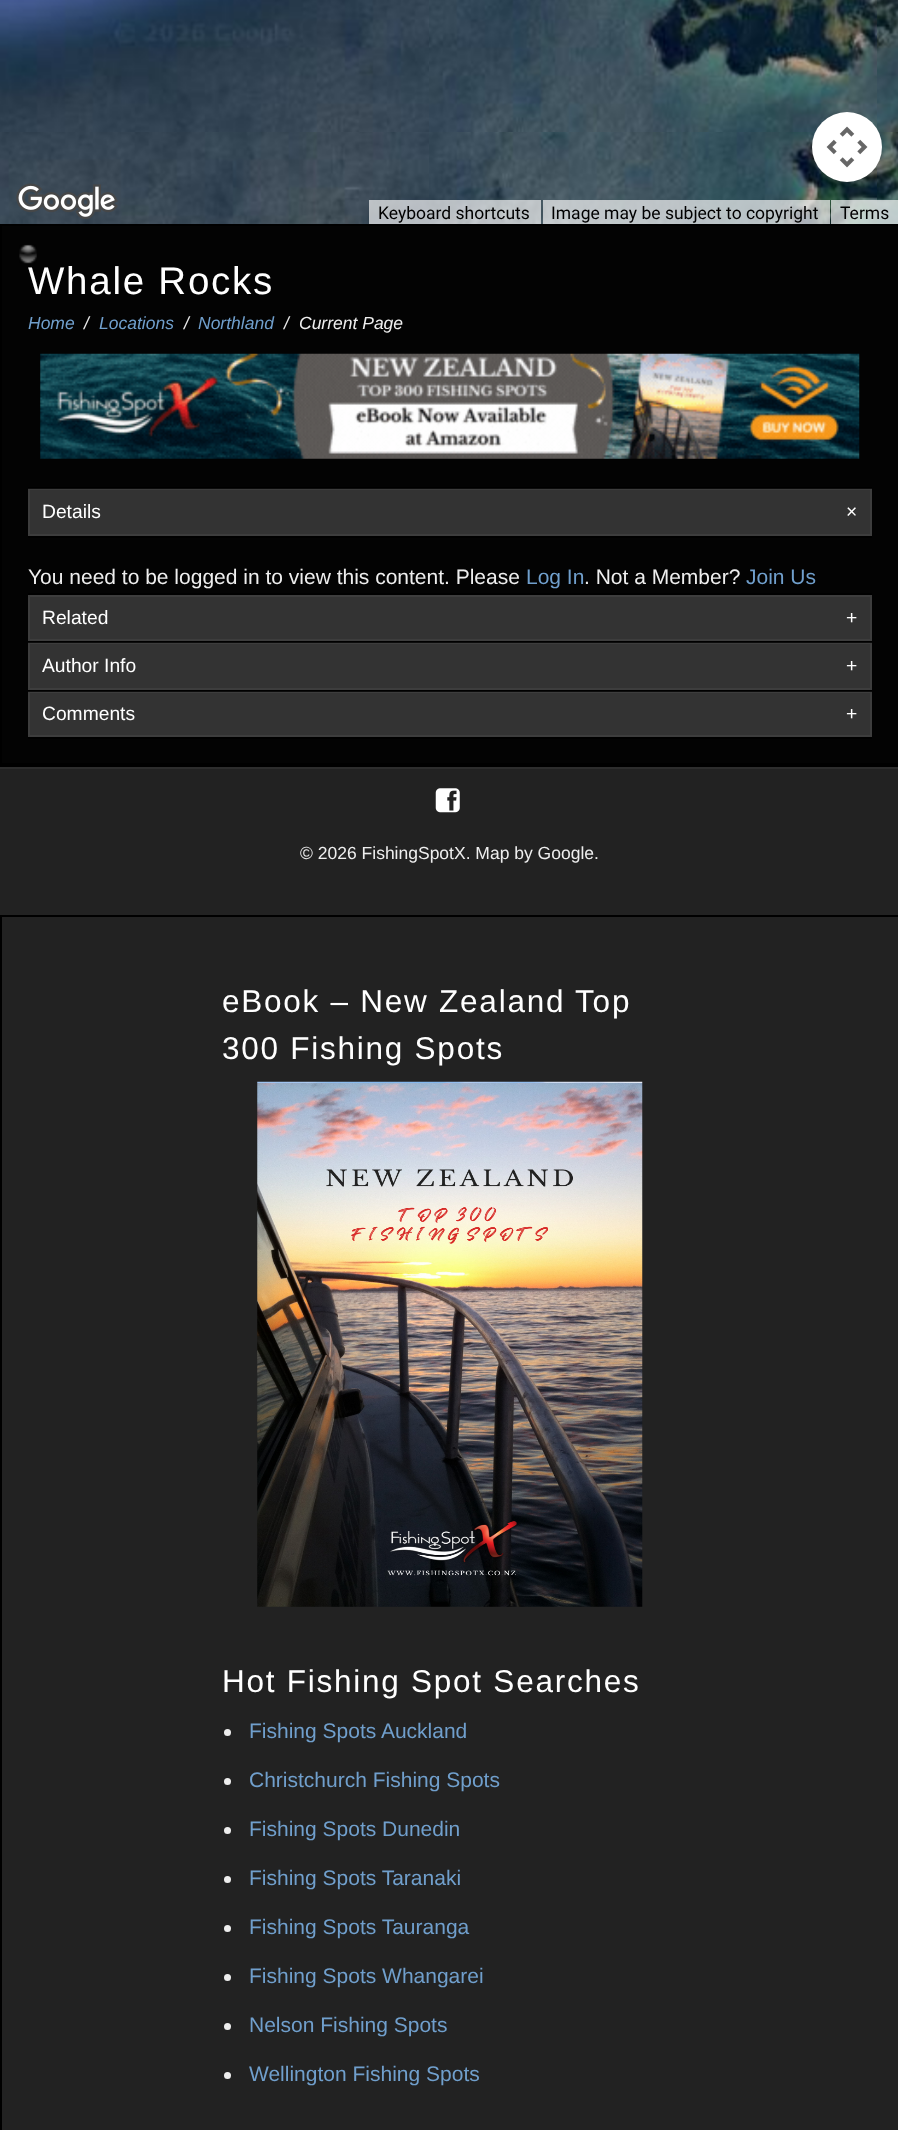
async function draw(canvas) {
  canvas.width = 898
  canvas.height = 2130
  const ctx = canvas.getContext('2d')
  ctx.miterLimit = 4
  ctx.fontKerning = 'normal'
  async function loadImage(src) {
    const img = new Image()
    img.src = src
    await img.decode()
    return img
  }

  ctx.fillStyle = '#222'
  ctx.fillRect(0, 0, 898, 2130)
  ctx.drawImage(await loadImage('image0.png'), 0, 0, 429, 132)
  ctx.drawImage(await loadImage('image1.png'), 429, 0, 448, 132)
  ctx.drawImage(await loadImage('image2.png'), 877, 0, 21, 132)
  ctx.drawImage(await loadImage('image3.png'), 0, 132, 429, 92)
  ctx.drawImage(await loadImage('image4.png'), 429, 132, 448, 92)
  ctx.drawImage(await loadImage('image5.png'), 877, 132, 21, 92)
  ctx.fillStyle = '#0000004d'
  ctx.filter = 'blur(3.5px)'
  ctx.beginPath()
  ctx.roundRect(814, 116, 66, 66, 33)
  ctx.fill()
  ctx.filter = 'none'
  ctx.fillStyle = '#fff'
  ctx.beginPath()
  ctx.arc(847, 147, 35, 0, 2 * Math.PI)
  ctx.fill()
  ctx.drawImage(await loadImage('image6.png'), 826, 126, 42, 42)
  ctx.drawImage(await loadImage('image7.png'), 16, 183, 102, 36)
  ctx.fillStyle = '#f5f5f5b3'
  ctx.fillRect(369, 200, 172, 24)
  ctx.font = '17.5px Roboto'
  ctx.fillStyle = '#000'
  ctx.fillText('Keyboard shortcuts', 378, 219)
  ctx.fillStyle = '#f5f5f5b3'
  ctx.fillRect(543, 200, 287, 24)
  ctx.fillStyle = '#000'
  ctx.fillText('Image may be subject to copyright', 551, 219)
  ctx.fillStyle = '#f5f5f5b3'
  ctx.fillRect(831, 200, 67, 24)
  ctx.fillStyle = '#000'
  ctx.fillText('Terms', 840, 219)
  ctx.fillStyle = '#000000e6'
  ctx.beginPath()
  ctx.rect(1, 225, 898, 539)
  ctx.fill()
  ctx.strokeStyle = '#000'
  ctx.lineWidth = 2
  ctx.stroke()
  ctx.drawImage(await loadImage('image8.png'), 19, 244, 18, 20)
  ctx.letterSpacing = '1.75px'
  ctx.font = '38.5px Liberation Sans'
  ctx.fillStyle = '#fff'
  ctx.fillText('Whale Rocks', 28, 294)
  ctx.letterSpacing = '0px'
  ctx.font = 'italic 17.5px Liberation Sans'
  ctx.fillStyle = '#709fcc'
  ctx.fillText('Home', 28, 329)
  ctx.fillStyle = '#eee'
  ctx.fillText('/', 84, 329)
  ctx.fillStyle = '#709fcc'
  ctx.fillText('Locations', 99, 329)
  ctx.fillStyle = '#eee'
  ctx.fillText('/', 184, 329)
  ctx.fillStyle = '#709fcc'
  ctx.fillText('Northland', 198, 329)
  ctx.fillStyle = '#eee'
  ctx.fillText('/', 284, 329)
  ctx.fillText('Current Page', 299, 329)
  ctx.drawImage(await loadImage('image9.png'), 40, 353, 820, 106)
  ctx.fillStyle = '#333'
  ctx.fillRect(28, 489, 844, 47)
  ctx.fillStyle = '#000'
  ctx.fillRect(28, 487, 844, 2)
  ctx.fillRect(28, 536, 844, 2)
  ctx.strokeStyle = '#ffffff0d'
  ctx.strokeRect(29, 489, 842, 46)
  ctx.font = '19.25px Liberation Sans'
  ctx.fillStyle = '#fff'
  ctx.fillText('Details', 42, 518)
  ctx.fillText('×', 846, 518)
  ctx.font = '21px Liberation Sans'
  ctx.fillStyle = '#eee'
  ctx.fillText('You need to be logged in to view this content. Please', 28, 584)
  ctx.fillStyle = '#709fcc'
  ctx.fillText('Log In', 526, 584)
  ctx.fillStyle = '#eee'
  ctx.fillText('. Not a Member?', 584, 584)
  ctx.fillStyle = '#709fcc'
  ctx.fillText('Join Us', 746, 584)
  ctx.fillStyle = '#333'
  ctx.fillRect(30, 597, 840, 42)
  ctx.fillStyle = '#000'
  ctx.fillRect(28, 593, 844, 2)
  ctx.strokeStyle = '#3d3d3d'
  ctx.strokeRect(29, 596, 842, 44)
  ctx.font = '19.25px Liberation Sans'
  ctx.fillStyle = '#fff'
  ctx.fillText('Related', 42, 624)
  ctx.fillText('+', 846, 624)
  ctx.fillStyle = '#333'
  ctx.fillRect(28, 643, 844, 47)
  ctx.fillStyle = '#000'
  ctx.fillRect(28, 641, 844, 2)
  ctx.strokeStyle = '#ffffff0d'
  ctx.strokeRect(29, 643, 842, 46)
  ctx.fillStyle = '#fff'
  ctx.fillText('Author Info', 42, 672)
  ctx.fillText('+', 846, 672)
  ctx.fillStyle = '#333'
  ctx.fillRect(28, 692, 844, 45)
  ctx.fillStyle = '#000'
  ctx.fillRect(28, 690, 844, 2)
  ctx.fillRect(28, 737, 844, 2)
  ctx.strokeRect(29, 692, 842, 44)
  ctx.fillStyle = '#fff'
  ctx.fillText('Comments', 42, 720)
  ctx.fillText('+', 846, 720)
  ctx.fillStyle = '#000'
  ctx.fillRect(0, 765, 898, 2)
  ctx.fillStyle = '#ffffff0d'
  ctx.fillRect(0, 767, 898, 2)
  ctx.drawImage(await loadImage('image10.png'), 435, 788, 25, 25)
  ctx.font = '17.5px Liberation Sans'
  ctx.fillStyle = '#eee'
  ctx.fillText('© 2026 FishingSpotX. Map by Google.', 300, 859)
  ctx.fillStyle = '#000'
  ctx.fillRect(0, 915, 898, 2)
  ctx.fillRect(0, 915, 2, 1215)
  ctx.letterSpacing = '1.75px'
  ctx.font = '31.5px Liberation Sans'
  ctx.fillStyle = '#fff'
  ctx.fillText('eBook – New Zealand Top', 222, 1012)
  ctx.fillText('300 Fishing Spots', 222, 1059)
  ctx.drawImage(await loadImage('image11.png'), 257, 1081, 386, 526)
  ctx.fillText('Hot Fishing Spot Searches', 222, 1692)
  ctx.fillStyle = '#eee'
  ctx.beginPath()
  ctx.arc(227.5, 1732.5, 3.5, 0, 2 * Math.PI)
  ctx.fill()
  ctx.letterSpacing = '0px'
  ctx.font = '21px Liberation Sans'
  ctx.fillStyle = '#709fcc'
  ctx.fillText('Fishing Spots Auckland', 249, 1738)
  ctx.fillStyle = '#eee'
  ctx.beginPath()
  ctx.arc(227.5, 1781.5, 3.5, 0, 2 * Math.PI)
  ctx.fill()
  ctx.fillStyle = '#709fcc'
  ctx.fillText('Christchurch Fishing Spots', 249, 1787)
  ctx.fillStyle = '#eee'
  ctx.beginPath()
  ctx.arc(227.5, 1830.5, 3.5, 0, 2 * Math.PI)
  ctx.fill()
  ctx.fillStyle = '#709fcc'
  ctx.fillText('Fishing Spots Dunedin', 249, 1836)
  ctx.fillStyle = '#eee'
  ctx.beginPath()
  ctx.arc(227.5, 1879.5, 3.5, 0, 2 * Math.PI)
  ctx.fill()
  ctx.fillStyle = '#709fcc'
  ctx.fillText('Fishing Spots Taranaki', 249, 1885)
  ctx.fillStyle = '#eee'
  ctx.beginPath()
  ctx.arc(227.5, 1928.5, 3.5, 0, 2 * Math.PI)
  ctx.fill()
  ctx.fillStyle = '#709fcc'
  ctx.fillText('Fishing Spots Tauranga', 249, 1934)
  ctx.fillStyle = '#eee'
  ctx.beginPath()
  ctx.arc(227.5, 1977.5, 3.5, 0, 2 * Math.PI)
  ctx.fill()
  ctx.fillStyle = '#709fcc'
  ctx.fillText('Fishing Spots Whangarei', 249, 1983)
  ctx.fillStyle = '#eee'
  ctx.beginPath()
  ctx.arc(227.5, 2026.5, 3.5, 0, 2 * Math.PI)
  ctx.fill()
  ctx.fillStyle = '#709fcc'
  ctx.fillText('Nelson Fishing Spots', 249, 2032)
  ctx.fillStyle = '#eee'
  ctx.beginPath()
  ctx.arc(227.5, 2075.5, 3.5, 0, 2 * Math.PI)
  ctx.fill()
  ctx.fillStyle = '#709fcc'
  ctx.fillText('Wellington Fishing Spots', 249, 2081)
}

draw(document.querySelector('canvas'))
